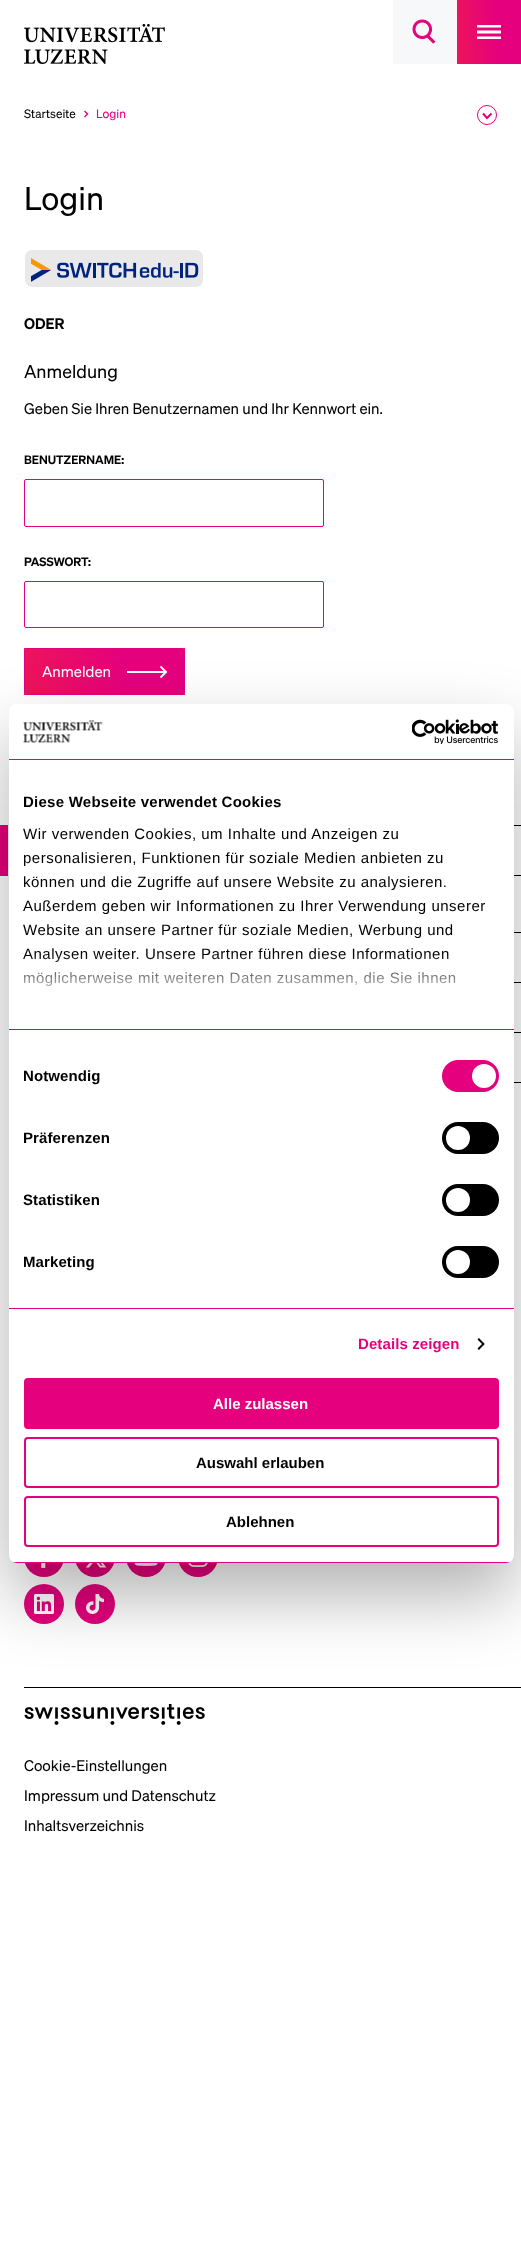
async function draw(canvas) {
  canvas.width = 521
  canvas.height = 2267
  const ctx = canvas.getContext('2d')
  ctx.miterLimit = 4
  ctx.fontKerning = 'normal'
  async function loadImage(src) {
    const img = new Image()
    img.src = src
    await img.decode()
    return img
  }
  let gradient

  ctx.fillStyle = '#fff'
  ctx.fillRect(0, 0, 521, 2267)
  ctx.drawImage(await loadImage('image0.png'), 24, 24, 141, 40)
  ctx.fillStyle = '#f7f8fa'
  ctx.fillRect(393, 0, 64, 64)
  ctx.drawImage(await loadImage('image1.png'), 412, 19, 24, 25)
  gradient = ctx.createLinearGradient(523, 29, 455, 35)
  gradient.addColorStop(0.37, '#e5007d')
  gradient.addColorStop(1, '#ed145b')
  ctx.fillStyle = gradient
  ctx.fillRect(457, 0, 64, 63)
  ctx.drawImage(await loadImage('image2.png'), 477, 25, 24, 14)
  gradient = ctx.createLinearGradient(521, 61, 457, 66)
  gradient.addColorStop(0.37, '#e5007d')
  gradient.addColorStop(1, '#ed145b')
  ctx.fillStyle = gradient
  ctx.fillRect(457, 63, 64, 1)
  ctx.font = '12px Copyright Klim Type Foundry'
  ctx.fillStyle = '#000'
  ctx.fillText('Startseite', 24, 118)
  ctx.beginPath()
  ctx.moveTo(84.5, 117)
  ctx.lineTo(87.5, 114)
  ctx.lineTo(84.5, 111)
  ctx.strokeStyle = '#e5007d'
  ctx.lineWidth = 1.4
  ctx.stroke()
  ctx.fillStyle = '#e5007d'
  ctx.fillText('Login', 96, 118)
  ctx.beginPath()
  ctx.arc(487, 115, 9.5, 0, 2 * Math.PI)
  ctx.lineWidth = 1
  ctx.stroke()
  ctx.beginPath()
  ctx.moveTo(483, 113.5)
  ctx.lineTo(487, 118)
  ctx.lineTo(491.5, 113.5)
  ctx.lineWidth = 2
  ctx.stroke()
  ctx.font = '32px Copyright Klim Type Foundry'
  ctx.fillStyle = '#000'
  ctx.fillText('Login', 24, 210)
  ctx.drawImage(await loadImage('image3.png'), 25, 250, 178, 37)
  ctx.font = '600 15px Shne'
  ctx.fillText('ODER', 24, 329)
  ctx.font = '18px Copyright Klim Type Foundry'
  ctx.fillText('Anmeldung', 24, 378)
  ctx.font = '15px Copyright Klim Type Foundry'
  ctx.fillText('Geben Sie Ihren Benutzernamen und Ihr Kennwort ein.', 24, 414)
  ctx.font = '600 12px Shne'
  ctx.fillText('BENUTZERNAME:', 24, 464)
  ctx.beginPath()
  ctx.roundRect(24.5, 479.5, 299, 47, 1.5)
  ctx.lineWidth = 1
  ctx.stroke()
  ctx.fillText('PASSWORT:', 24, 566)
  ctx.beginPath()
  ctx.roundRect(24.5, 581.5, 299, 46, 1.5)
  ctx.stroke()
  gradient = ctx.createLinearGradient(26, 620, -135, 633)
  gradient.addColorStop(0.37, '#e5007d')
  gradient.addColorStop(1, '#ed145b')
  ctx.fillStyle = gradient
  ctx.fillRect(24, 648, 1, 1)
  gradient = ctx.createLinearGradient(344, 620, 183, 633)
  gradient.addColorStop(0.37, '#e5007d')
  gradient.addColorStop(1, '#ed145b')
  ctx.fillStyle = gradient
  ctx.fillRect(184, 648, 1, 1)
  gradient = ctx.createLinearGradient(185, 665, 24, 678)
  gradient.addColorStop(0.37, '#e5007d')
  gradient.addColorStop(1, '#ed145b')
  ctx.fillStyle = gradient
  ctx.fillRect(25, 649, 159, 45)
  gradient = ctx.createLinearGradient(26, 710, -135, 723)
  gradient.addColorStop(0.37, '#e5007d')
  gradient.addColorStop(1, '#ed145b')
  ctx.fillStyle = gradient
  ctx.fillRect(24, 694, 1, 1)
  gradient = ctx.createLinearGradient(344, 710, 183, 723)
  gradient.addColorStop(0.37, '#e5007d')
  gradient.addColorStop(1, '#ed145b')
  ctx.fillStyle = gradient
  ctx.fillRect(184, 694, 1, 1)
  ctx.beginPath()
  ctx.roundRect(24.5, 648.5, 160, 46, 1.5)
  ctx.stroke()
  ctx.font = '15px Copyright Klim Type Foundry'
  ctx.fillStyle = '#fff'
  ctx.fillText('Anmelden', 42, 677)
  ctx.beginPath()
  ctx.moveTo(160.5, 677.5)
  ctx.lineTo(166, 672)
  ctx.lineTo(160.5, 666.5)
  ctx.strokeStyle = '#fff'
  ctx.lineWidth = 2
  ctx.stroke()
  ctx.fillRect(127, 671, 38, 2)
  ctx.fillStyle = '#000'
  ctx.fillRect(514, 825, 7, 1)
  ctx.fillRect(514, 875, 7, 1)
  ctx.fillStyle = '#e5007d'
  ctx.fillRect(0, 825, 8, 51)
  ctx.fillStyle = '#000'
  ctx.fillRect(514, 932, 7, 1)
  ctx.fillRect(514, 982, 7, 1)
  ctx.fillRect(514, 1032, 7, 1)
  ctx.fillRect(514, 1082, 7, 1)
  ctx.fillStyle = '#e5007d'
  ctx.beginPath()
  ctx.arc(44, 1557, 20, 0, 2 * Math.PI)
  ctx.fill()
  ctx.drawImage(await loadImage('image4.png'), 41, 1563, 5, 5)
  ctx.beginPath()
  ctx.arc(95, 1557, 20, 0, 2 * Math.PI)
  ctx.fill()
  ctx.drawImage(await loadImage('image5.png'), 85, 1563, 22, 5)
  ctx.beginPath()
  ctx.arc(146, 1557, 20, 0, 2 * Math.PI)
  ctx.fill()
  ctx.drawImage(await loadImage('image6.png'), 134, 1563, 24, 3)
  ctx.beginPath()
  ctx.arc(198, 1557, 20, 0, 2 * Math.PI)
  ctx.fill()
  ctx.drawImage(await loadImage('image7.png'), 188, 1563, 20, 4)
  ctx.beginPath()
  ctx.arc(44, 1604, 20, 0, 2 * Math.PI)
  ctx.fill()
  ctx.drawImage(await loadImage('image8.png'), 34, 1594, 20, 20)
  ctx.beginPath()
  ctx.arc(95, 1604, 20, 0, 2 * Math.PI)
  ctx.fill()
  ctx.drawImage(await loadImage('image9.png'), 86, 1594, 18, 20)
  ctx.fillStyle = '#000'
  ctx.fillRect(24, 1687, 497, 1)
  ctx.drawImage(await loadImage('image10.png'), 24, 1704, 181, 21)
  ctx.fillText('Cookie-Einstellungen', 24, 1771)
  ctx.fillText('Impressum und Datenschutz', 24, 1801)
  ctx.fillText('Inhaltsverzeichnis', 24, 1831)
  ctx.fillStyle = '#0000004d'
  ctx.filter = 'blur(34px)'
  ctx.beginPath()
  ctx.roundRect(9, 736, 505, 859, 8)
  ctx.fill()
  ctx.filter = 'none'
  ctx.fillStyle = '#fff'
  ctx.beginPath()
  ctx.roundRect(9, 704, 505, 859, 8)
  ctx.fill()
  ctx.fillStyle = '#e5007d'
  ctx.fillRect(9, 759, 505, 1)
  ctx.drawImage(await loadImage('image11.png'), 23, 720, 80, 23)
  ctx.drawImage(await loadImage('image12.png'), 412, 719, 87, 25)
  ctx.fillRect(9, 1029, 505, 1)
  ctx.letterSpacing = '0.25px'
  ctx.font = 'bold 15px Liberation Sans'
  ctx.fillStyle = '#000'
  ctx.fillText('Diese Webseite verwendet Cookies', 23, 807)
  ctx.letterSpacing = '0.5px'
  ctx.font = '15px Liberation Sans'
  ctx.fillText('Wir verwenden Cookies, um Inhalte und Anzeigen zu', 23, 839)
  ctx.fillText('personalisieren, Funktionen für soziale Medien anbieten zu', 23, 863)
  ctx.fillText('können und die Zugriffe auf unsere Website zu analysieren.', 23, 887)
  ctx.fillText('Außerdem geben wir Informationen zu Ihrer Verwendung unserer', 23, 911)
  ctx.fillText('Website an unsere Partner für soziale Medien, Werbung und', 23, 935)
  ctx.fillText('Analysen weiter. Unsere Partner führen diese Informationen', 23, 959)
  ctx.fillText('möglicherweise mit weiteren Daten zusammen, die Sie ihnen', 23, 983)
  gradient = ctx.createLinearGradient(255, 1029, 255, 954)
  gradient.addColorStop(0, '#fff')
  gradient.addColorStop(0.5, '#ffffffcc')
  gradient.addColorStop(1, '#ffffff00')
  ctx.fillStyle = gradient
  ctx.fillRect(23, 955, 433, 32)
  ctx.fillStyle = '#e5007d'
  ctx.fillRect(9, 1308, 505, 1)
  ctx.letterSpacing = '0.1px'
  ctx.font = 'bold 15px Liberation Sans'
  ctx.fillStyle = '#000'
  ctx.fillText('Notwendig', 23, 1081)
  ctx.fillStyle = '#e5007d'
  ctx.beginPath()
  ctx.roundRect(442, 1060, 57, 32, 16)
  ctx.fill()
  ctx.fillStyle = '#fff'
  ctx.beginPath()
  ctx.arc(484, 1076, 12, 0, 2 * Math.PI)
  ctx.fill()
  ctx.fillStyle = '#000'
  ctx.fillText('Präferenzen', 23, 1143)
  ctx.beginPath()
  ctx.roundRect(442, 1122, 57, 32, 16)
  ctx.fill()
  ctx.fillStyle = '#fff'
  ctx.beginPath()
  ctx.arc(458, 1138, 12, 0, 2 * Math.PI)
  ctx.fill()
  ctx.fillStyle = '#000'
  ctx.fillText('Statistiken', 23, 1205)
  ctx.beginPath()
  ctx.roundRect(442, 1184, 57, 32, 16)
  ctx.fill()
  ctx.fillStyle = '#fff'
  ctx.beginPath()
  ctx.arc(458, 1200, 12, 0, 2 * Math.PI)
  ctx.fill()
  ctx.fillStyle = '#000'
  ctx.fillText('Marketing', 23, 1267)
  ctx.beginPath()
  ctx.roundRect(442, 1246, 57, 32, 16)
  ctx.fill()
  ctx.fillStyle = '#fff'
  ctx.beginPath()
  ctx.arc(458, 1262, 12, 0, 2 * Math.PI)
  ctx.fill()
  ctx.fillStyle = '#e5007d'
  ctx.fillText('Details zeigen', 358, 1349)
  ctx.fillStyle = '#000'
  ctx.beginPath()
  ctx.moveTo(479, 1338)
  ctx.lineTo(484.5, 1344)
  ctx.lineTo(483.5, 1345.5)
  ctx.lineTo(477.5, 1339.5)
  ctx.closePath()
  ctx.fill()
  ctx.beginPath()
  ctx.moveTo(483.5, 1342.5)
  ctx.lineTo(484.5, 1344)
  ctx.lineTo(479, 1350)
  ctx.lineTo(477.5, 1348.5)
  ctx.closePath()
  ctx.fill()
  ctx.save()
  ctx.beginPath()
  ctx.roundRect(9, 704, 505, 859, 8)
  ctx.clip()
  ctx.fillStyle = '#e5007d'
  ctx.fillRect(9, 1562, 505, 1)
  ctx.restore()
  ctx.fillStyle = '#e5007d'
  ctx.beginPath()
  ctx.roundRect(25, 1379, 473, 49, 3)
  ctx.fill()
  ctx.strokeStyle = '#e5007d'
  ctx.stroke()
  ctx.letterSpacing = '0px'
  ctx.fillStyle = '#fff'
  ctx.fillText('Alle zulassen', 213, 1409)
  ctx.beginPath()
  ctx.roundRect(25, 1438, 473, 49, 3)
  ctx.stroke()
  ctx.fillStyle = '#000'
  ctx.fillText('Auswahl erlauben', 196, 1468)
  ctx.beginPath()
  ctx.roundRect(25, 1497, 473, 49, 3)
  ctx.stroke()
  ctx.fillText('Ablehnen', 226, 1527)
}

draw(document.querySelector('canvas'))
